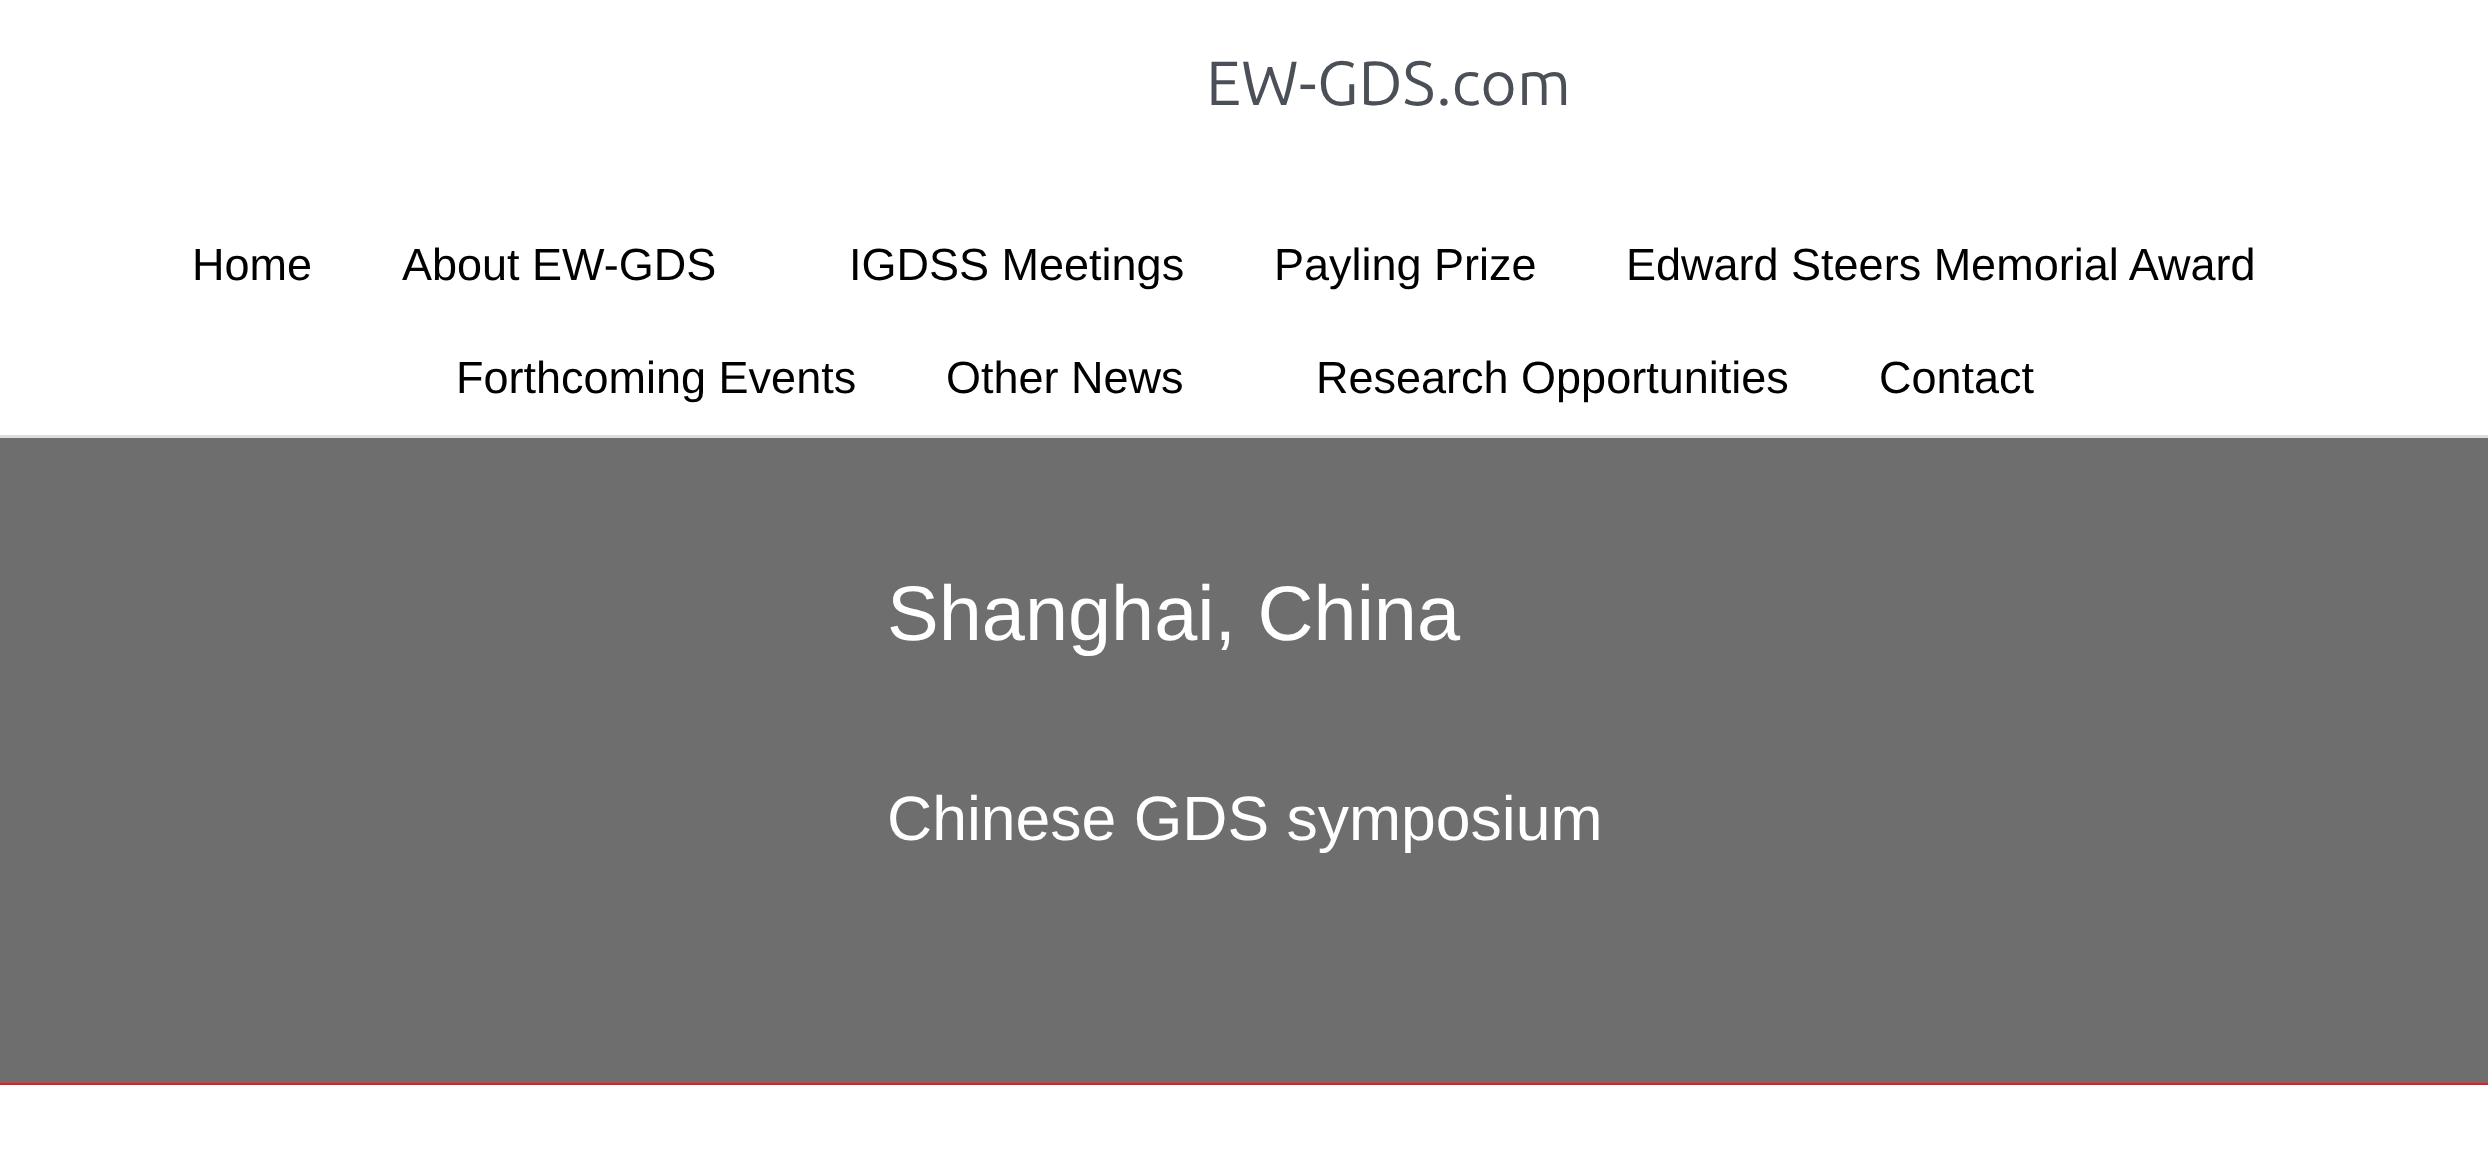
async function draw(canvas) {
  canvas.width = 2488
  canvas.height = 1151
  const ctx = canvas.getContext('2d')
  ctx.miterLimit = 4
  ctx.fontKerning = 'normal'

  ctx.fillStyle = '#fc121d'
  ctx.fillRect(0, 0, 2488, 1151)
  ctx.fillStyle = '#fff'
  ctx.fillRect(0, 0, 2488, 435)
  ctx.fillStyle = '#ddd'
  ctx.fillRect(0, 435, 2488, 3)
  ctx.font = '62.5px Ubuntu'
  ctx.fillStyle = '#4b4f58'
  ctx.fillText('EW-GDS.com', 1206, 105)
  ctx.font = '45px Liberation Sans'
  ctx.fillStyle = '#000'
  ctx.fillText('Home', 192, 280)
  ctx.fillText('About EW-GDS', 402, 280)
  ctx.fillText('IGDSS Meetings', 849, 280)
  ctx.fillText('Payling Prize', 1274, 280)
  ctx.fillText('Edward Steers Memorial Award', 1626, 280)
  ctx.fillText('Forthcoming Events', 456, 393)
  ctx.fillText('Other News', 946, 393)
  ctx.fillText('Research Opportunities', 1316, 393)
  ctx.fillText('Contact', 1879, 393)
  ctx.fillStyle = '#6e6e6e'
  ctx.fillRect(0, 438, 2488, 645)
  ctx.font = '77.5px Liberation Sans'
  ctx.fillStyle = '#fff'
  ctx.fillText('Shanghai, China', 887, 640)
  ctx.font = '62.5px Liberation Sans'
  ctx.fillText('Chinese GDS symposium', 887, 840)
  ctx.fillRect(0, 1085, 2488, 66)
}

draw(document.querySelector('canvas'))
